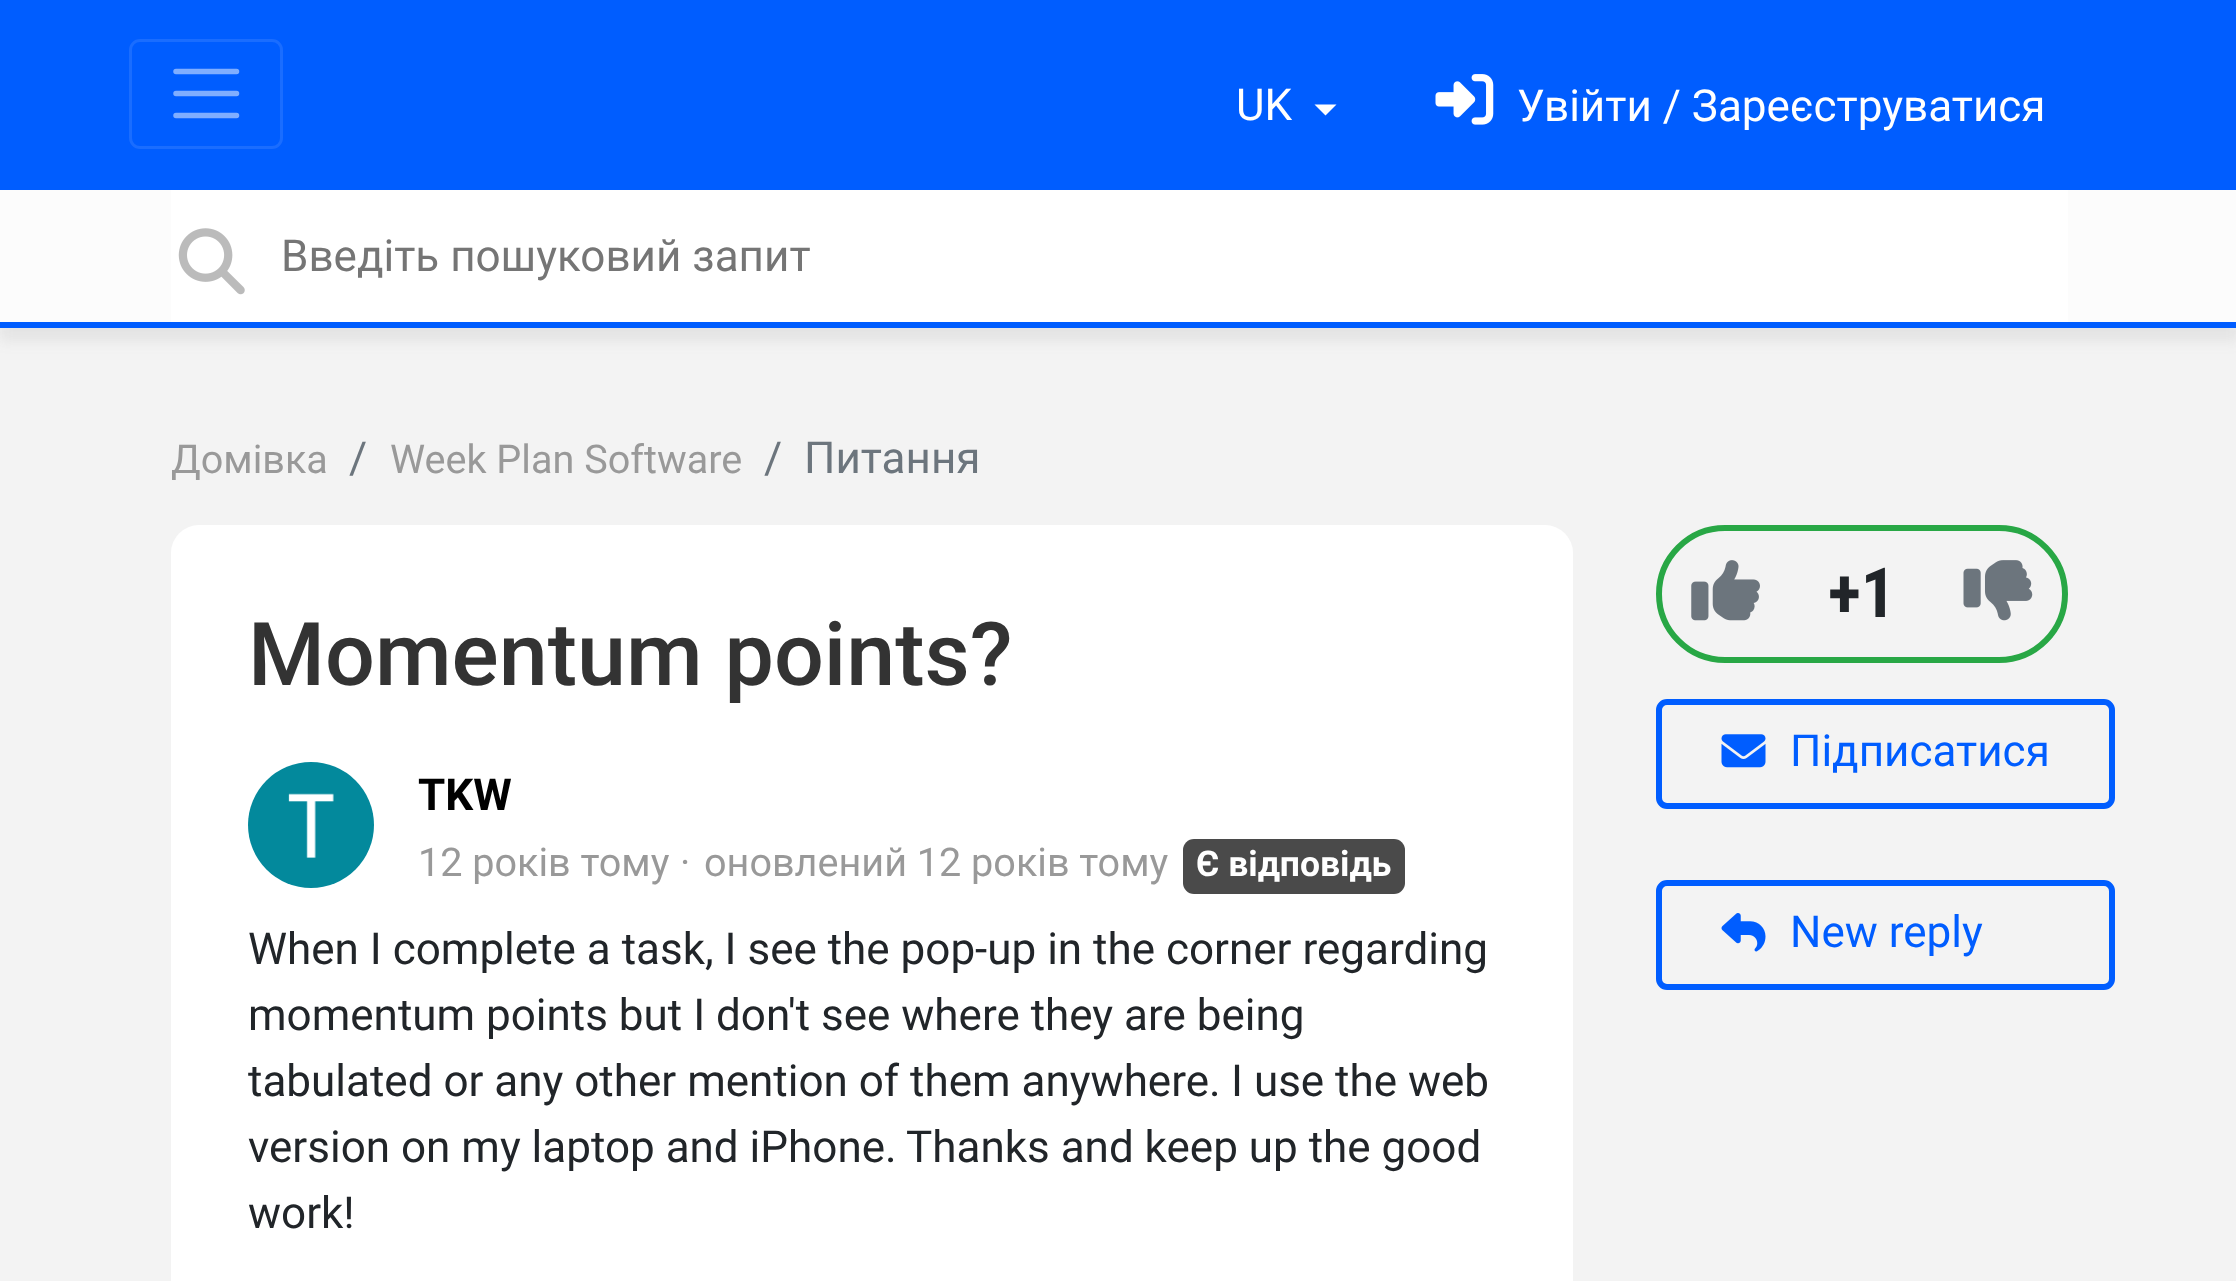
async function draw(canvas) {
  canvas.width = 2236
  canvas.height = 1281
  const ctx = canvas.getContext('2d')
  ctx.miterLimit = 4
  ctx.fontKerning = 'normal'
  async function loadImage(src) {
    const img = new Image()
    img.src = src
    await img.decode()
    return img
  }

  ctx.fillStyle = '#f3f3f3'
  ctx.fillRect(0, 0, 2236, 1281)
  ctx.fillStyle = '#005dff'
  ctx.fillRect(0, 0, 2236, 190)
  ctx.beginPath()
  ctx.roundRect(130.5, 40.5, 151, 107, 9.5)
  ctx.strokeStyle = '#1a6dff'
  ctx.lineWidth = 3
  ctx.stroke()
  ctx.beginPath()
  ctx.moveTo(176, 71.5)
  ctx.lineTo(236.5, 71.5)
  ctx.moveTo(176, 93.5)
  ctx.lineTo(236.5, 93.5)
  ctx.moveTo(176, 115.5)
  ctx.lineTo(236.5, 115.5)
  ctx.strokeStyle = '#80aeff'
  ctx.lineWidth = 5.5
  ctx.lineCap = 'round'
  ctx.stroke()
  ctx.font = '44px Roboto'
  ctx.fillStyle = '#fff'
  ctx.fillText('UK', 1236, 120)
  ctx.beginPath()
  ctx.moveTo(1314.5, 104.5)
  ctx.lineTo(1336.5, 104.5)
  ctx.lineTo(1325.5, 115.5)
  ctx.closePath()
  ctx.fill()
  ctx.drawImage(await loadImage('image0.png'), 1435, 74, 59, 51)
  ctx.fillText('Увійти / Зареєструватися', 1517, 121)
  ctx.fillStyle = '#6464641a'
  ctx.filter = 'blur(7px)'
  ctx.beginPath()
  ctx.rect(0, 204, 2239, 137)
  ctx.fill()
  ctx.filter = 'none'
  ctx.fillStyle = '#fcfcfc'
  ctx.fillRect(0, 190, 2236, 132)
  ctx.fillStyle = '#005dff'
  ctx.fillRect(0, 322, 2236, 6)
  ctx.fillStyle = '#fff'
  ctx.fillRect(171, 190, 1897, 132)
  ctx.drawImage(await loadImage('image1.png'), 178, 228, 67, 67)
  ctx.fillStyle = '#757575'
  ctx.fillText('Введіть пошуковий запит', 281, 271)
  ctx.font = '39.6px Roboto'
  ctx.fillStyle = '#999'
  ctx.fillText('Домівка', 171, 473)
  ctx.font = '44px Roboto'
  ctx.fillStyle = '#6c757d'
  ctx.fillText('/', 349, 473)
  ctx.font = '39.6px Roboto'
  ctx.fillStyle = '#999'
  ctx.fillText('Week Plan Software', 390, 473)
  ctx.font = '44px Roboto'
  ctx.fillStyle = '#6c757d'
  ctx.fillText('/', 764, 473)
  ctx.fillText('Питання', 804, 473)
  ctx.fillStyle = '#fff'
  ctx.beginPath()
  ctx.roundRect(171, 525, 1402, 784, 28)
  ctx.fill()
  ctx.font = '500 88px Roboto'
  ctx.fillStyle = '#333'
  ctx.fillText('Momentum points?', 248, 685)
  ctx.fillStyle = '#03899c'
  ctx.beginPath()
  ctx.arc(311, 825, 63, 0, 2 * Math.PI)
  ctx.fill()
  ctx.drawImage(await loadImage('image2.png'), 288, 793, 46, 65)
  ctx.font = 'bold 44px Roboto'
  ctx.fillStyle = '#000'
  ctx.fillText('TKW', 418, 810)
  ctx.font = '39.6px Roboto'
  ctx.fillStyle = '#999'
  ctx.fillText('12 років тому', 418, 876)
  ctx.fillText('·', 680, 876)
  ctx.fillText('оновлений 12 років тому', 704, 876)
  ctx.fillStyle = '#4a4a4a'
  ctx.beginPath()
  ctx.roundRect(1183, 839, 222, 55, 11)
  ctx.fill()
  ctx.font = 'bold 35.5px Roboto'
  ctx.fillStyle = '#fff'
  ctx.fillText('Є відповідь', 1196, 876)
  ctx.font = '44px Roboto'
  ctx.fillStyle = '#212529'
  ctx.fillText('When I complete a task, I see the pop-up in the corner regarding', 248, 964)
  ctx.fillText('momentum points but I don\'t see where they are being', 248, 1030)
  ctx.save()
  ctx.beginPath()
  ctx.rect(248, 916, 1248, 330)
  ctx.clip()
  ctx.fillText('tabulated or any other mention of them anywhere.', 248, 1096)
  ctx.restore()
  ctx.fillText('I use the web', 1231, 1096)
  ctx.fillText('version on my laptop and iPhone.', 248, 1162)
  ctx.fillText('Thanks and keep up the good', 906, 1162)
  ctx.fillText('work!', 248, 1228)
  ctx.beginPath()
  ctx.roundRect(1659, 528, 406, 132, 66)
  ctx.strokeStyle = '#28a745'
  ctx.lineWidth = 6
  ctx.stroke()
  ctx.drawImage(await loadImage('image3.png'), 1691, 560, 69, 61)
  ctx.font = 'bold 69px Roboto Condensed'
  ctx.fillText('+1', 1828, 617)
  ctx.drawImage(await loadImage('image4.png'), 1963, 560, 70, 61)
  ctx.beginPath()
  ctx.roundRect(1659, 702, 453, 104, 8)
  ctx.strokeStyle = '#005dff'
  ctx.stroke()
  ctx.drawImage(await loadImage('image5.png'), 1721, 734, 45, 34)
  ctx.font = '44px Roboto'
  ctx.fillStyle = '#005dff'
  ctx.fillText('Підписатися', 1790, 766)
  ctx.beginPath()
  ctx.roundRect(1659, 883, 453, 104, 8)
  ctx.stroke()
  ctx.drawImage(await loadImage('image6.png'), 1721, 913, 45, 39)
  ctx.fillText('New reply', 1790, 947)
}

draw(document.querySelector('canvas'))
